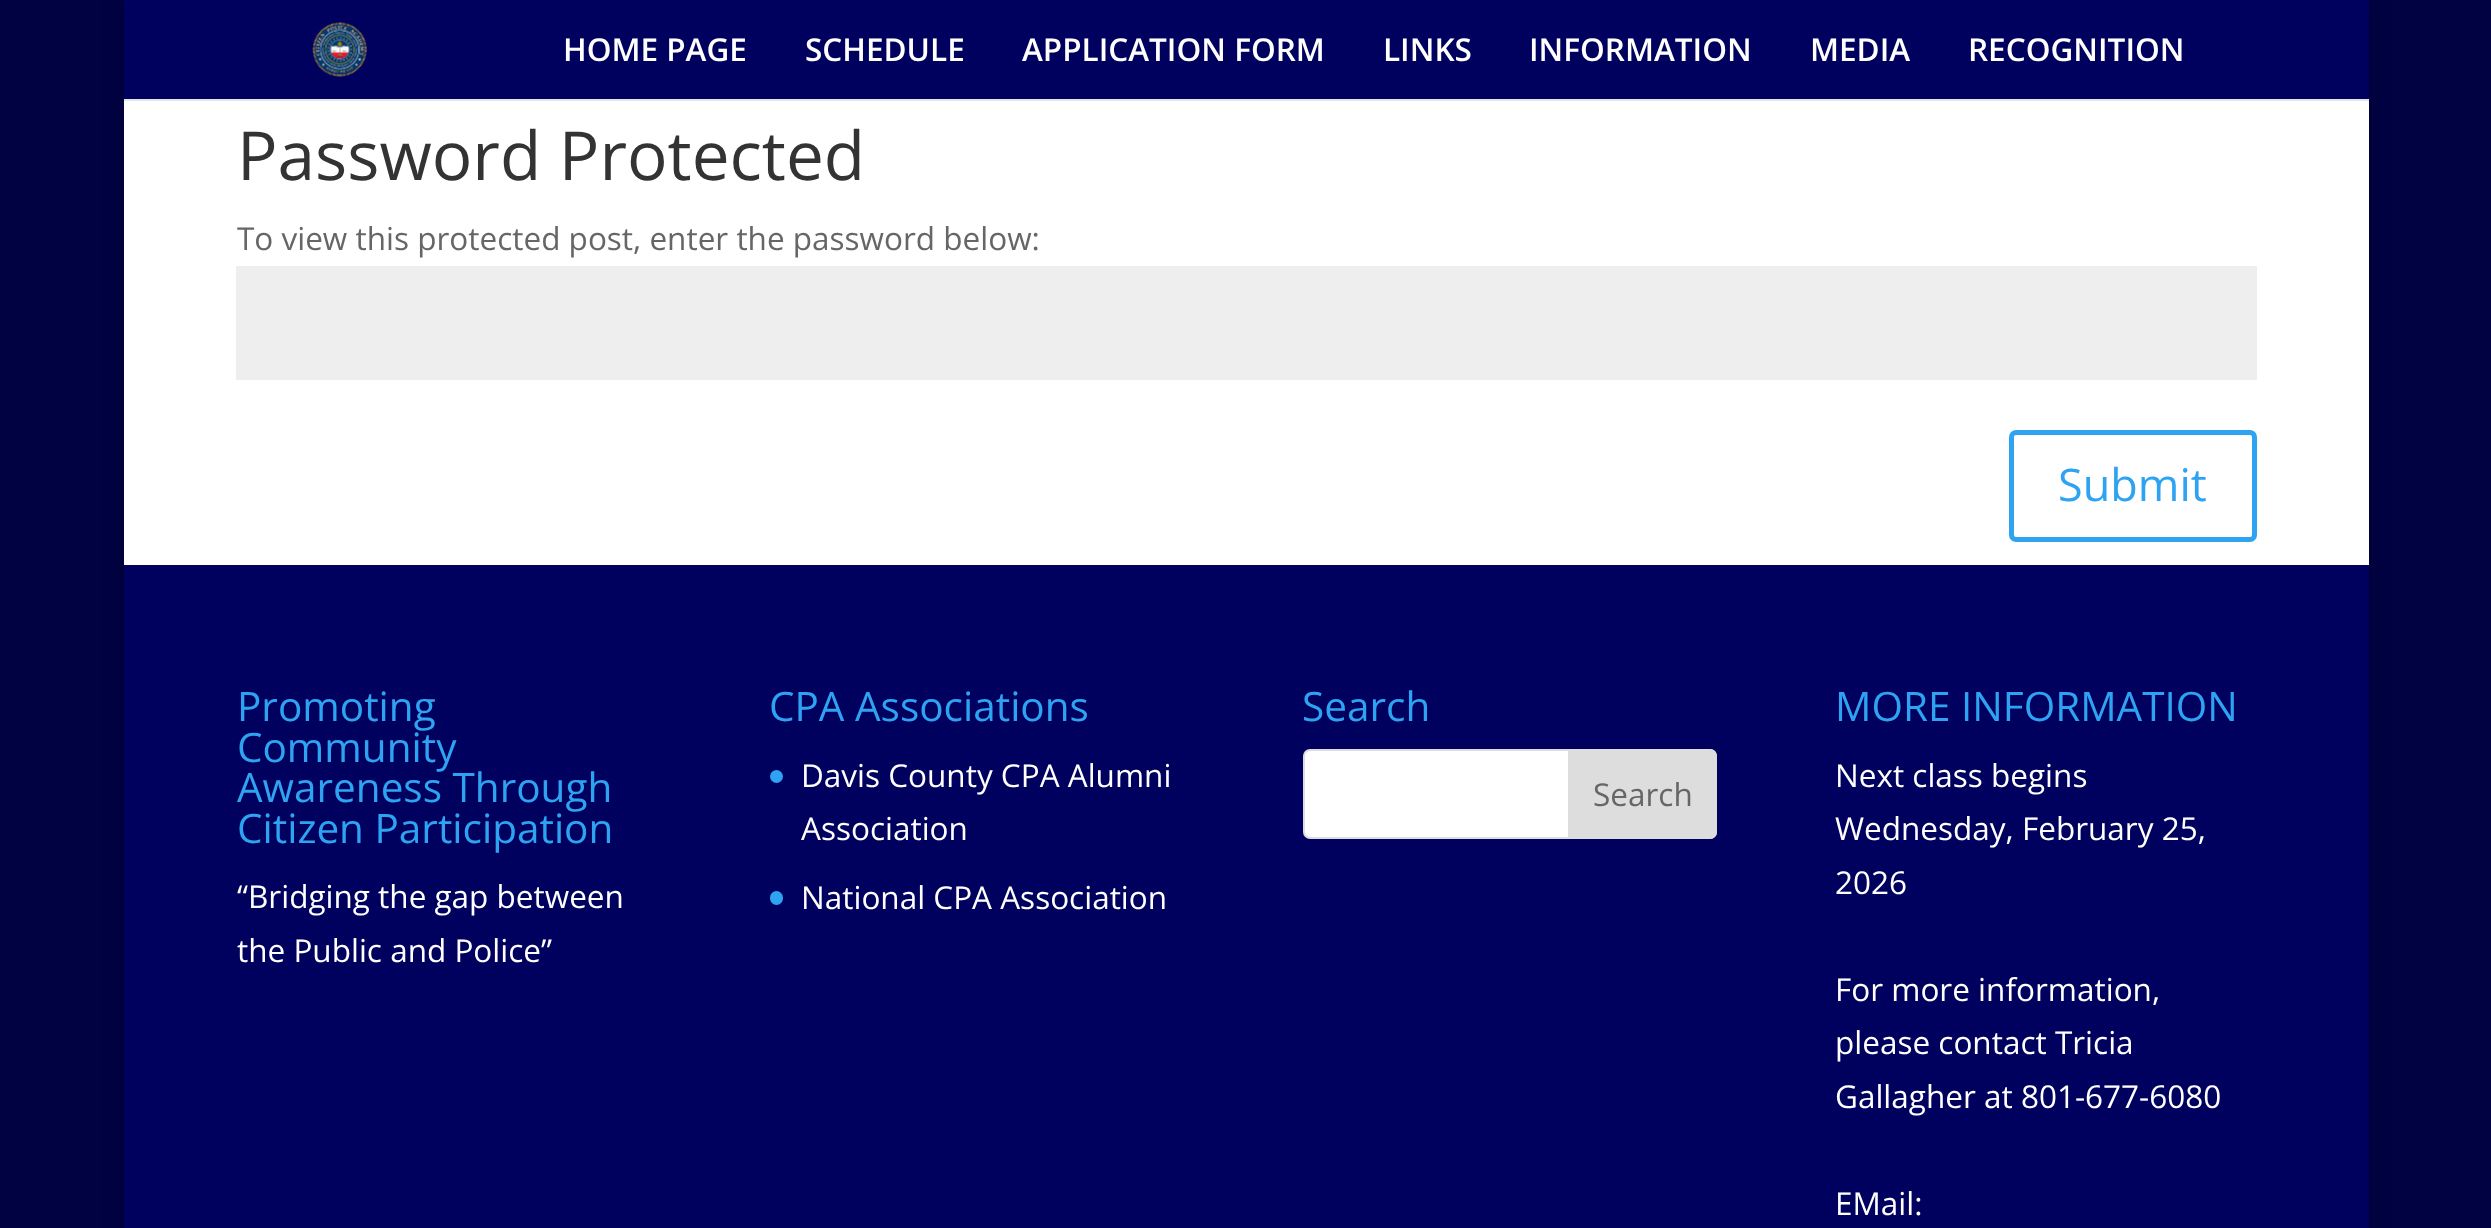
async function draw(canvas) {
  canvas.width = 2491
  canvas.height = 1228
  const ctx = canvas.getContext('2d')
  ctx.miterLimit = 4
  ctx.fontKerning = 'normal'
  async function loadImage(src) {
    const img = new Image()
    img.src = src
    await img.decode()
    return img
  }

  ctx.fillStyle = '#000242'
  ctx.fillRect(0, 0, 2491, 1228)
  ctx.fillStyle = '#00000033'
  ctx.filter = 'blur(11px)'
  ctx.beginPath()
  ctx.rect(124, 0, 2245, 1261)
  ctx.fill()
  ctx.filter = 'none'
  ctx.fillStyle = '#e6e6e6'
  ctx.fillRect(124, 99, 2245, 2)
  ctx.fillStyle = '#00005e'
  ctx.fillRect(124, 0, 2245, 99)
  ctx.drawImage(await loadImage('image0.png'), 312, 22, 56, 55)
  ctx.font = '600 31.5px Open Sans'
  ctx.fillStyle = '#fff'
  ctx.fillText('HOME PAGE', 563, 61)
  ctx.fillText('SCHEDULE', 805, 61)
  ctx.fillText('APPLICATION FORM', 1022, 61)
  ctx.fillText('LINKS', 1383, 61)
  ctx.fillText('INFORMATION', 1529, 61)
  ctx.fillText('MEDIA', 1810, 61)
  ctx.fillText('RECOGNITION', 1968, 61)
  ctx.fillRect(124, 101, 2245, 464)
  ctx.font = '67.5px Open Sans'
  ctx.fillStyle = '#333'
  ctx.fillText('Password Protected', 237, 180)
  ctx.font = '31.5px Open Sans'
  ctx.fillStyle = '#666'
  ctx.fillText('To view this protected post, enter the password below:', 237, 250)
  ctx.fillStyle = '#eee'
  ctx.fillRect(236, 266, 2021, 114)
  ctx.beginPath()
  ctx.roundRect(2011.5, 432.5, 243, 107, 4.5)
  ctx.strokeStyle = '#2ea3f2'
  ctx.lineWidth = 5
  ctx.stroke()
  ctx.font = '45px Open Sans'
  ctx.fillStyle = '#2ea3f2'
  ctx.fillText('Submit', 2058, 501)
  ctx.fillStyle = '#00005e'
  ctx.fillRect(124, 565, 2245, 663)
  ctx.font = '40.5px Open Sans'
  ctx.fillStyle = '#2ea3f2'
  ctx.fillText('Promoting', 237, 721)
  ctx.fillText('Community', 237, 762)
  ctx.fillText('Awareness Through', 237, 802)
  ctx.fillText('Citizen Participation', 237, 843)
  ctx.font = '31.5px Open Sans'
  ctx.fillStyle = '#fff'
  ctx.fillText('“Bridging the gap between', 237, 908)
  ctx.fillText('the Public and Police”', 237, 962)
  ctx.font = '40.5px Open Sans'
  ctx.fillStyle = '#2ea3f2'
  ctx.fillText('CPA Associations', 769, 721)
  ctx.beginPath()
  ctx.arc(776.5, 776.5, 6.5, 0, 2 * Math.PI)
  ctx.fill()
  ctx.font = '31.5px Open Sans'
  ctx.fillStyle = '#fff'
  ctx.fillText('Davis County CPA Alumni', 801, 787)
  ctx.fillText('Association', 801, 840)
  ctx.fillStyle = '#2ea3f2'
  ctx.beginPath()
  ctx.roundRect(770, 891, 13, 14, 6.5)
  ctx.fill()
  ctx.fillStyle = '#fff'
  ctx.fillText('National CPA Association', 801, 909)
  ctx.font = '40.5px Open Sans'
  ctx.fillStyle = '#2ea3f2'
  ctx.fillText('Search', 1302, 721)
  ctx.fillStyle = '#fff'
  ctx.beginPath()
  ctx.roundRect(1304, 750, 412, 88, 6)
  ctx.fill()
  ctx.strokeStyle = '#ddd'
  ctx.lineWidth = 2
  ctx.stroke()
  ctx.fillStyle = '#ddd'
  ctx.beginPath()
  ctx.roundRect(1569, 750, 147, 88, [0, 6, 6, 0])
  ctx.fill()
  ctx.stroke()
  ctx.font = '31.5px Open Sans'
  ctx.fillStyle = '#666'
  ctx.fillText('Search', 1593, 806)
  ctx.font = '40.5px Open Sans'
  ctx.fillStyle = '#2ea3f2'
  ctx.fillText('MORE INFORMATION', 1835, 721)
  ctx.font = '31.5px Open Sans'
  ctx.fillStyle = '#fff'
  ctx.fillText('Next class begins', 1835, 787)
  ctx.fillText('Wednesday, February 25,', 1835, 840)
  ctx.fillText('2026', 1835, 894)
  ctx.fillText('For more information,', 1835, 1001)
  ctx.fillText('please contact Tricia', 1835, 1054)
  ctx.fillText('Gallagher at 801-677-6080', 1835, 1108)
  ctx.fillText('EMail:', 1835, 1215)
}

draw(document.querySelector('canvas'))
